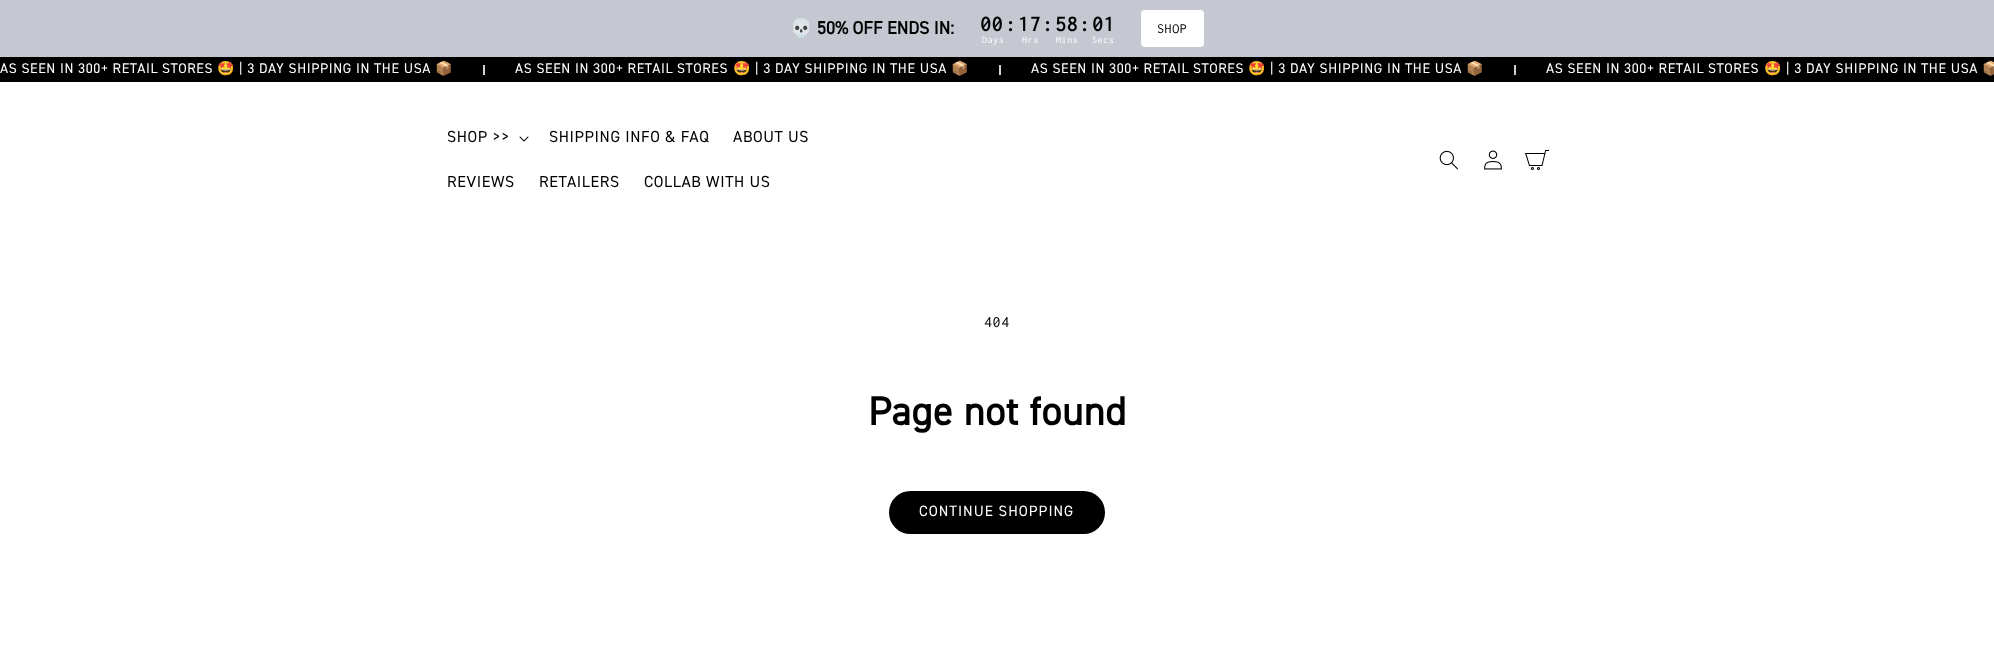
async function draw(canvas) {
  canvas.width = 1994
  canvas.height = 654
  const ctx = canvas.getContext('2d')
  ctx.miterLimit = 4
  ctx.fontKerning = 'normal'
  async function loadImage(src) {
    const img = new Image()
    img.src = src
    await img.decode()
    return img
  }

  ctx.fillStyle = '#fff'
  ctx.fillRect(0, 0, 1994, 654)
  ctx.fillStyle = '#c5c8d1'
  ctx.fillRect(0, 0, 1994, 57)
  ctx.font = 'bold 18px Noto Color Emoji'
  ctx.fillStyle = '#000'
  ctx.fillText('💀', 790, 34)
  ctx.font = 'bold 18px "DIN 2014"'
  ctx.fillText('50% OFF ENDS IN:', 817, 34)
  ctx.letterSpacing = '0.6px'
  ctx.font = 'bold 22px Inconsolata'
  ctx.fillText('00', 980, 31)
  ctx.fillText(':', 1005, 31)
  ctx.fillText('17', 1018, 31)
  ctx.fillText(':', 1042, 31)
  ctx.fillText('58', 1055, 31)
  ctx.fillText(':', 1079, 31)
  ctx.fillText('01', 1092, 31)
  ctx.font = '10px Inconsolata'
  ctx.fillStyle = '#fff'
  ctx.fillText('Days', 982, 43)
  ctx.fillText('Hrs', 1022, 43)
  ctx.fillText('Mins', 1056, 43)
  ctx.fillText('Secs', 1092, 43)
  ctx.beginPath()
  ctx.roundRect(1141, 10, 63, 37, 4)
  ctx.fill()
  ctx.font = '14px Inconsolata'
  ctx.fillStyle = '#000'
  ctx.fillText('SHOP', 1157, 33)
  ctx.fillRect(0, 57, 1994, 25)
  ctx.font = '14px "DIN 2014"'
  ctx.fillStyle = '#fff'
  ctx.fillText('AS SEEN IN 300+ RETAIL STORES', 0, 73)
  ctx.font = '14px Noto Color Emoji'
  ctx.fillText('🤩', 217, 73)
  ctx.font = '14px "DIN 2014"'
  ctx.fillText('| 3 DAY SHIPPING IN THE USA', 239, 73)
  ctx.font = '14px Noto Color Emoji'
  ctx.fillText('📦', 435, 73)
  ctx.fillStyle = '#d1d1d1'
  ctx.fillRect(483, 65, 2, 10)
  ctx.font = '14px "DIN 2014"'
  ctx.fillStyle = '#fff'
  ctx.fillText('AS SEEN IN 300+ RETAIL STORES', 515, 73)
  ctx.font = '14px Noto Color Emoji'
  ctx.fillText('🤩', 733, 73)
  ctx.font = '14px "DIN 2014"'
  ctx.fillText('| 3 DAY SHIPPING IN THE USA', 755, 73)
  ctx.font = '14px Noto Color Emoji'
  ctx.fillText('📦', 951, 73)
  ctx.fillStyle = '#d1d1d1'
  ctx.fillRect(999, 65, 2, 10)
  ctx.font = '14px "DIN 2014"'
  ctx.fillStyle = '#fff'
  ctx.fillText('AS SEEN IN 300+ RETAIL STORES', 1031, 73)
  ctx.font = '14px Noto Color Emoji'
  ctx.fillText('🤩', 1248, 73)
  ctx.font = '14px "DIN 2014"'
  ctx.fillText('| 3 DAY SHIPPING IN THE USA', 1270, 73)
  ctx.font = '14px Noto Color Emoji'
  ctx.fillText('📦', 1466, 73)
  ctx.fillStyle = '#d1d1d1'
  ctx.fillRect(1514, 65, 2, 10)
  ctx.font = '14px "DIN 2014"'
  ctx.fillStyle = '#fff'
  ctx.fillText('AS SEEN IN 300+ RETAIL STORES', 1546, 73)
  ctx.font = '14px Noto Color Emoji'
  ctx.fillText('🤩', 1764, 73)
  ctx.font = '14px "DIN 2014"'
  ctx.fillText('| 3 DAY SHIPPING IN THE USA', 1786, 73)
  ctx.font = '14px Noto Color Emoji'
  ctx.fillText('📦', 1982, 73)
  ctx.font = '16px "DIN 2014"'
  ctx.fillStyle = '#000'
  ctx.fillText('SHOP >>', 447, 142)
  ctx.drawImage(await loadImage('image0.png'), 519, 136, 10, 6)
  ctx.fillText('SHIPPING INFO & FAQ', 549, 142)
  ctx.fillText('ABOUT US', 733, 142)
  ctx.fillText('REVIEWS', 447, 187)
  ctx.fillText('RETAILERS', 539, 187)
  ctx.fillText('COLLAB WITH US', 644, 187)
  ctx.drawImage(await loadImage('image1.png'), 1439, 150, 19, 20)
  ctx.drawImage(await loadImage('image2.png'), 1484, 150, 18, 20)
  ctx.drawImage(await loadImage('image3.png'), 1525, 150, 24, 20)
  ctx.font = '16px Inconsolata'
  ctx.fillText('404', 984, 327)
  ctx.font = 'bold 40px "DIN 2014"'
  ctx.fillText('Page not found', 868, 425)
  ctx.beginPath()
  ctx.roundRect(888, 490, 218, 45, 22.5)
  ctx.fill()
  ctx.strokeStyle = '#fff'
  ctx.lineWidth = 2
  ctx.stroke()
  ctx.letterSpacing = '1px'
  ctx.font = '15px "DIN 2014"'
  ctx.fillStyle = '#fff'
  ctx.fillText('CONTINUE SHOPPING', 919, 516)
}

draw(document.querySelector('canvas'))
